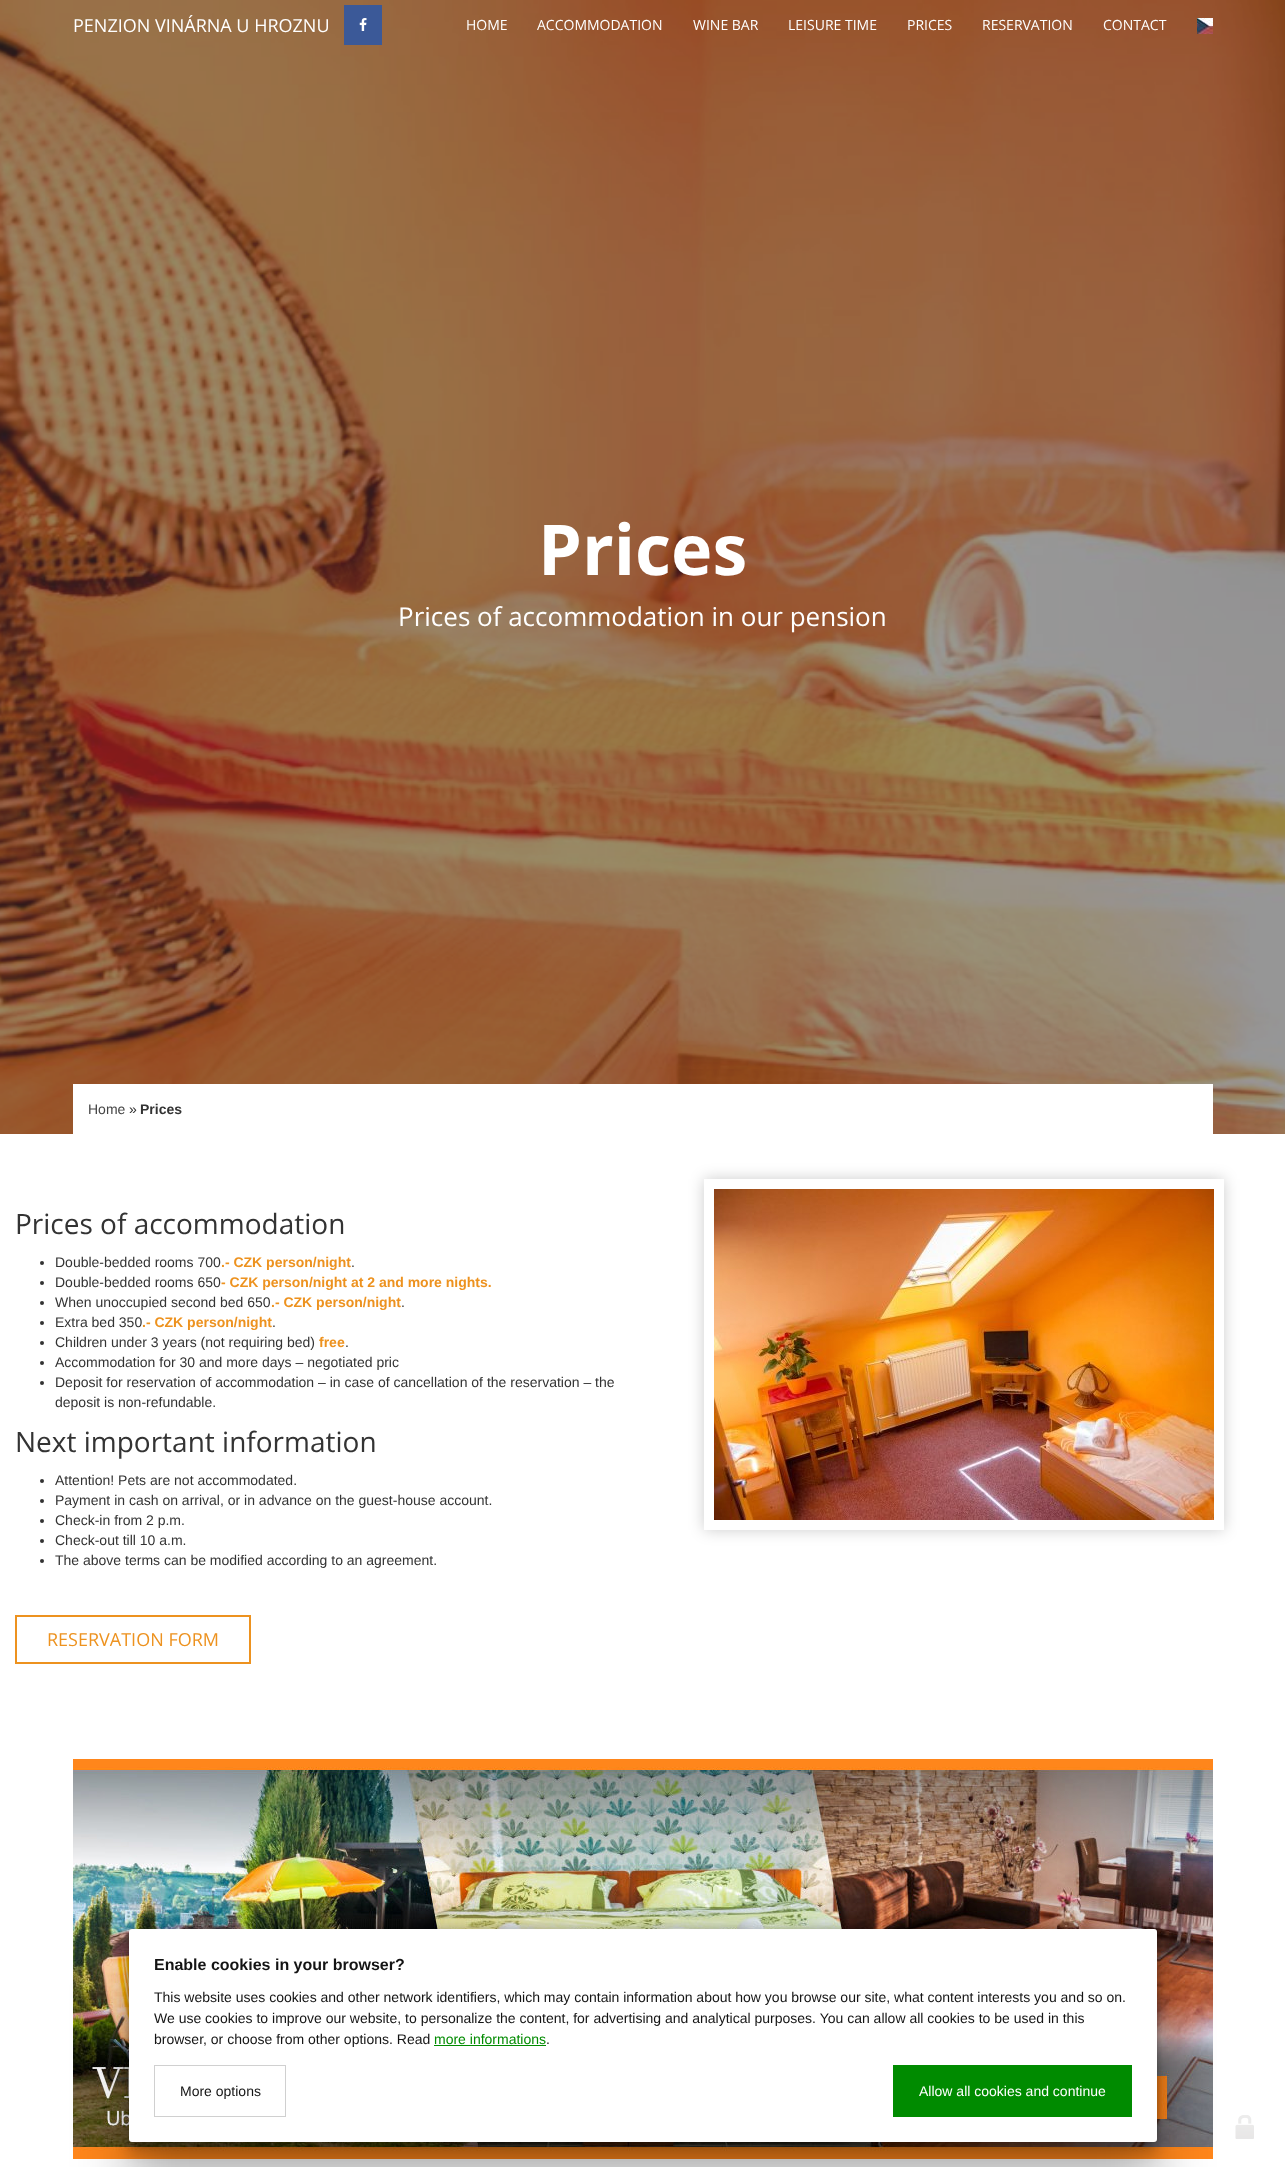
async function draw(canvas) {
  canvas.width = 1285
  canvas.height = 2167
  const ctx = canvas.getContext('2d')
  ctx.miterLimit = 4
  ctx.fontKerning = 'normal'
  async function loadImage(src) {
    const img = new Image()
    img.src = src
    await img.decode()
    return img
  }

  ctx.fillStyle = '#fff'
  ctx.fillRect(0, 0, 1285, 2167)
  ctx.drawImage(await loadImage('image2.png'), 0, 0, 1285, 1134)
  ctx.font = '18px Open Sans'
  ctx.fillText('PENZION VINÁRNA U HROZNU', 73, 32)
  ctx.fillStyle = '#3b5998'
  ctx.fillRect(344, 5, 38, 40)
  ctx.drawImage(await loadImage('image0.png'), 359, 18, 8, 13)
  ctx.font = '14px Open Sans'
  ctx.fillStyle = '#fff'
  ctx.fillText('HOME', 466, 30)
  ctx.fillText('ACCOMMODATION', 537, 30)
  ctx.fillText('WINE BAR', 693, 30)
  ctx.fillText('LEISURE TIME', 788, 30)
  ctx.fillText('PRICES', 907, 30)
  ctx.fillText('RESERVATION', 982, 30)
  ctx.fillText('CONTACT', 1103, 30)
  ctx.drawImage(await loadImage('image1.png'), 1197, 18, 16, 16)
  ctx.font = 'bold 70px Open Sans'
  ctx.fillText('Prices', 538, 575)
  ctx.font = '26px Open Sans'
  ctx.fillText('Prices of accommodation in our pension', 398, 626)
  ctx.fillRect(73, 1084, 1140, 50)
  ctx.font = '14px Liberation Sans'
  ctx.fillStyle = '#444'
  ctx.fillText('Home', 88, 1114)
  ctx.fillStyle = '#333'
  ctx.fillText('»', 129, 1114)
  ctx.font = 'bold 14px Liberation Sans'
  ctx.fillText('Prices', 140, 1114)
  ctx.font = '28px Open Sans'
  ctx.fillText('Prices of accommodation', 15, 1234)
  ctx.beginPath()
  ctx.arc(42, 1263, 2, 0, 2 * Math.PI)
  ctx.fill()
  ctx.font = '14px Liberation Sans'
  ctx.fillText('Double-bedded rooms 700', 55, 1267)
  ctx.font = 'bold 14px Liberation Sans'
  ctx.fillStyle = '#ed921f'
  ctx.fillText('.- CZK person/night', 221, 1267)
  ctx.font = '14px Liberation Sans'
  ctx.fillStyle = '#333'
  ctx.fillText('.', 351, 1267)
  ctx.beginPath()
  ctx.arc(42, 1283, 2, 0, 2 * Math.PI)
  ctx.fill()
  ctx.fillText('Double-bedded rooms 650', 55, 1287)
  ctx.font = 'bold 14px Liberation Sans'
  ctx.fillStyle = '#ed921f'
  ctx.fillText('- CZK person/night at 2 and more nights.', 221, 1287)
  ctx.fillStyle = '#333'
  ctx.beginPath()
  ctx.arc(42, 1303, 2, 0, 2 * Math.PI)
  ctx.fill()
  ctx.font = '14px Liberation Sans'
  ctx.fillText('When unoccupied second bed 650', 55, 1307)
  ctx.font = 'bold 14px Liberation Sans'
  ctx.fillStyle = '#ed921f'
  ctx.fillText('.- CZK person/night', 271, 1307)
  ctx.font = '14px Liberation Sans'
  ctx.fillStyle = '#333'
  ctx.fillText('.', 401, 1307)
  ctx.beginPath()
  ctx.arc(42, 1323, 2, 0, 2 * Math.PI)
  ctx.fill()
  ctx.fillText('Extra bed 350', 55, 1327)
  ctx.font = 'bold 14px Liberation Sans'
  ctx.fillStyle = '#ed921f'
  ctx.fillText('.- CZK person/night', 142, 1327)
  ctx.font = '14px Liberation Sans'
  ctx.fillStyle = '#333'
  ctx.fillText('.', 272, 1327)
  ctx.beginPath()
  ctx.arc(42, 1343, 2, 0, 2 * Math.PI)
  ctx.fill()
  ctx.fillText('Children under 3 years (not requiring bed)', 55, 1347)
  ctx.font = 'bold 14px Liberation Sans'
  ctx.fillStyle = '#ed921f'
  ctx.fillText('free', 319, 1347)
  ctx.font = '14px Liberation Sans'
  ctx.fillStyle = '#333'
  ctx.fillText('.', 345, 1347)
  ctx.beginPath()
  ctx.arc(42, 1363, 2, 0, 2 * Math.PI)
  ctx.fill()
  ctx.fillText('Accommodation for 30 and more days – negotiated pric', 55, 1367)
  ctx.beginPath()
  ctx.arc(42, 1383, 2, 0, 2 * Math.PI)
  ctx.fill()
  ctx.fillText('Deposit for reservation of accommodation – in case of cancellation of the reservation – the', 55, 1387)
  ctx.fillText('deposit is non-refundable.', 55, 1407)
  ctx.font = '28px Open Sans'
  ctx.fillText('Next important information', 15, 1452)
  ctx.beginPath()
  ctx.arc(42, 1481, 2, 0, 2 * Math.PI)
  ctx.fill()
  ctx.font = '14px Liberation Sans'
  ctx.fillText('Attention! Pets are not accommodated.', 55, 1485)
  ctx.beginPath()
  ctx.arc(42, 1501, 2, 0, 2 * Math.PI)
  ctx.fill()
  ctx.fillText('Payment in cash on arrival, or in advance on the guest-house account.', 55, 1505)
  ctx.beginPath()
  ctx.arc(42, 1521, 2, 0, 2 * Math.PI)
  ctx.fill()
  ctx.fillText('Check-in from 2 p.m.', 55, 1525)
  ctx.beginPath()
  ctx.arc(42, 1541, 2, 0, 2 * Math.PI)
  ctx.fill()
  ctx.fillText('Check-out till 10 a.m.', 55, 1545)
  ctx.beginPath()
  ctx.arc(42, 1561, 2, 0, 2 * Math.PI)
  ctx.fill()
  ctx.fillText('The above terms can be modified according to an agreement.', 55, 1565)
  ctx.strokeStyle = '#ed921f'
  ctx.lineWidth = 2
  ctx.strokeRect(16, 1616, 234, 47)
  ctx.font = '18px Open Sans'
  ctx.fillStyle = '#ed921f'
  ctx.fillText('RESERVATION FORM', 47, 1646)
  ctx.save()
  ctx.beginPath()
  ctx.moveTo(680, 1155)
  ctx.lineTo(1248, 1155)
  ctx.lineTo(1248, 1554)
  ctx.lineTo(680, 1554)
  ctx.closePath()
  ctx.moveTo(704, 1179)
  ctx.lineTo(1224, 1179)
  ctx.lineTo(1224, 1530)
  ctx.lineTo(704, 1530)
  ctx.closePath()
  ctx.clip('evenodd')
  ctx.fillStyle = '#00000033'
  ctx.filter = 'blur(7.5px)'
  ctx.beginPath()
  ctx.rect(704, 1179, 520, 351)
  ctx.fill()
  ctx.filter = 'none'
  ctx.restore()
  ctx.drawImage(await loadImage('image3.png'), 714, 1189, 500, 331)
  ctx.drawImage(await loadImage('image4.png'), 73, 1759, 1140, 400)
  ctx.fillStyle = '#00000017'
  ctx.filter = 'blur(2.5px)'
  ctx.beginPath()
  ctx.roundRect(129, 1926, 1028, 213, 3)
  ctx.fill()
  ctx.filter = 'none'
  ctx.fillStyle = '#0000002b'
  ctx.filter = 'blur(6.5px)'
  ctx.beginPath()
  ctx.roundRect(129, 1941, 1028, 213, 3)
  ctx.fill()
  ctx.filter = 'none'
  ctx.fillStyle = '#0000001f'
  ctx.filter = 'blur(3px)'
  ctx.beginPath()
  ctx.roundRect(129, 1933, 1028, 213, 3)
  ctx.fill()
  ctx.filter = 'none'
  ctx.filter = 'blur(15px)'
  ctx.beginPath()
  ctx.roundRect(129, 1917, 1028, 213, 3)
  ctx.fill()
  ctx.filter = 'none'
  ctx.drawImage(await loadImage('image5.png'), 1235, 2115, 19, 24)
  ctx.fillStyle = '#00000040'
  ctx.filter = 'blur(27.5px)'
  ctx.beginPath()
  ctx.roundRect(129, 1983, 1028, 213, 3)
  ctx.fill()
  ctx.filter = 'none'
  ctx.fillStyle = '#fff'
  ctx.beginPath()
  ctx.roundRect(129, 1929, 1028, 213, 3)
  ctx.fill()
  ctx.font = 'bold 16px Liberation Sans'
  ctx.fillStyle = '#141414'
  ctx.fillText('Enable cookies in your browser?', 154, 1970)
  ctx.font = '14px Liberation Sans'
  ctx.fillText('This website uses cookies and other network identifiers, which may contain information about how you browse our site, what content interests you and so on.', 154, 2002)
  ctx.fillText('We use cookies to improve our website, to personalize the content, for advertising and analytical purposes. You can allow all cookies to be used in this', 154, 2023)
  ctx.fillText('browser, or choose from other options. Read', 154, 2044)
  ctx.fillStyle = '#008b00'
  ctx.fillText('more informations', 434, 2044)
  ctx.fillRect(434, 2045, 112, 1)
  ctx.fillStyle = '#141414'
  ctx.fillText('.', 546, 2044)
  ctx.strokeStyle = '#d0d0d0'
  ctx.lineWidth = 1
  ctx.strokeRect(154.5, 2065.5, 131, 51)
  ctx.fillText('More options', 180, 2096)
  ctx.fillStyle = '#008b00'
  ctx.fillRect(893, 2065, 239, 52)
  ctx.fillStyle = '#fff'
  ctx.fillText('Allow all cookies and continue', 919, 2096)
}

draw(document.querySelector('canvas'))
